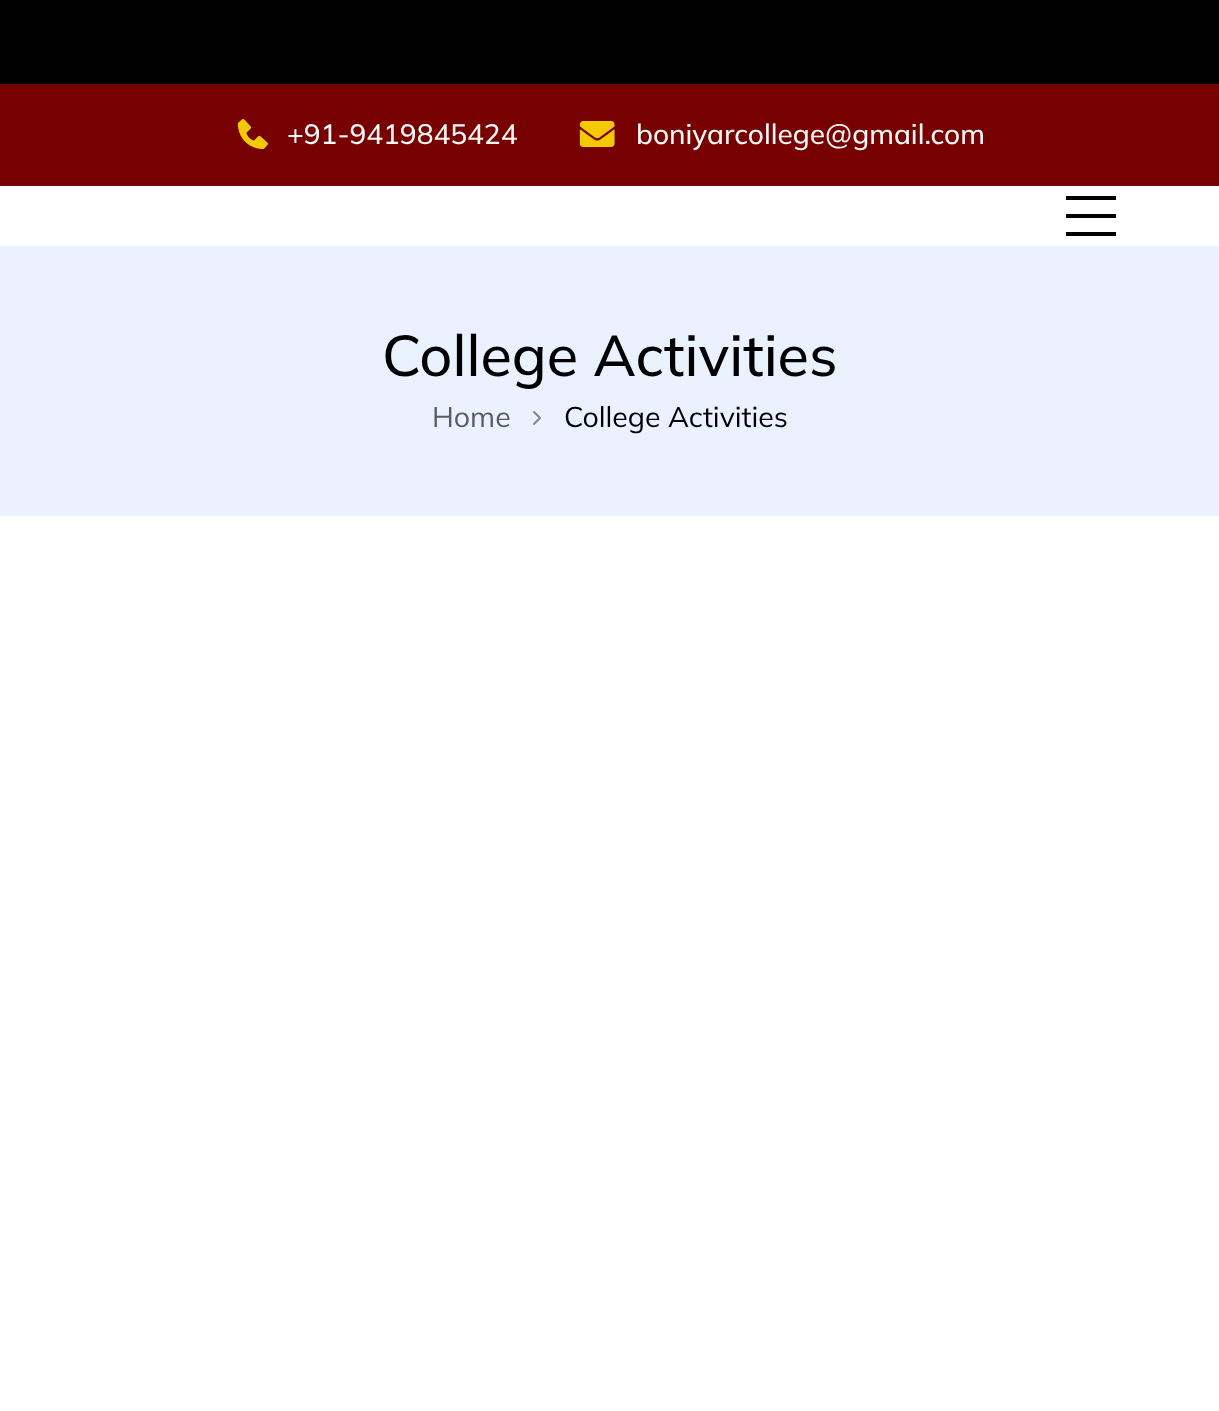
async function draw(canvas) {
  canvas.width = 1219
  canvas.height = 1411
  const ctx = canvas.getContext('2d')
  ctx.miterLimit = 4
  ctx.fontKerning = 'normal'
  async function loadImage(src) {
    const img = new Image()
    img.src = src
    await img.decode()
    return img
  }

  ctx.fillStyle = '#fff'
  ctx.fillRect(0, 0, 1219, 1411)
  ctx.fillStyle = '#000'
  ctx.fillRect(0, 0, 1219, 84)
  ctx.fillStyle = '#770101'
  ctx.fillRect(0, 84, 1219, 102)
  ctx.drawImage(await loadImage('image0.png'), 237, 119, 31, 30)
  ctx.font = '500 28px Mulish'
  ctx.fillStyle = '#f7f7f7'
  ctx.fillText('+91-9419845424', 287, 144)
  ctx.drawImage(await loadImage('image1.png'), 579, 121, 36, 26)
  ctx.fillText('boniyarcollege@gmail.com', 636, 144)
  ctx.fillStyle = '#000'
  ctx.fillRect(1066, 196, 50, 4)
  ctx.fillRect(1066, 214, 50, 4)
  ctx.fillRect(1066, 232, 50, 4)
  ctx.fillStyle = '#eaf1ff'
  ctx.fillRect(0, 246, 1219, 270)
  ctx.font = '500 57.5px Mulish'
  ctx.fillStyle = '#000'
  ctx.fillText('College Activities', 382, 376)
  ctx.font = '28.5px Mulish'
  ctx.fillStyle = '#5c5c5c'
  ctx.fillText('Home', 432, 427)
  ctx.beginPath()
  ctx.moveTo(534, 412)
  ctx.lineTo(540, 418)
  ctx.lineTo(534, 424)
  ctx.strokeStyle = '#868686'
  ctx.lineWidth = 2
  ctx.lineCap = 'round'
  ctx.lineJoin = 'round'
  ctx.stroke()
  ctx.fillStyle = '#000'
  ctx.fillText('College Activities', 564, 427)
}

draw(document.querySelector('canvas'))
